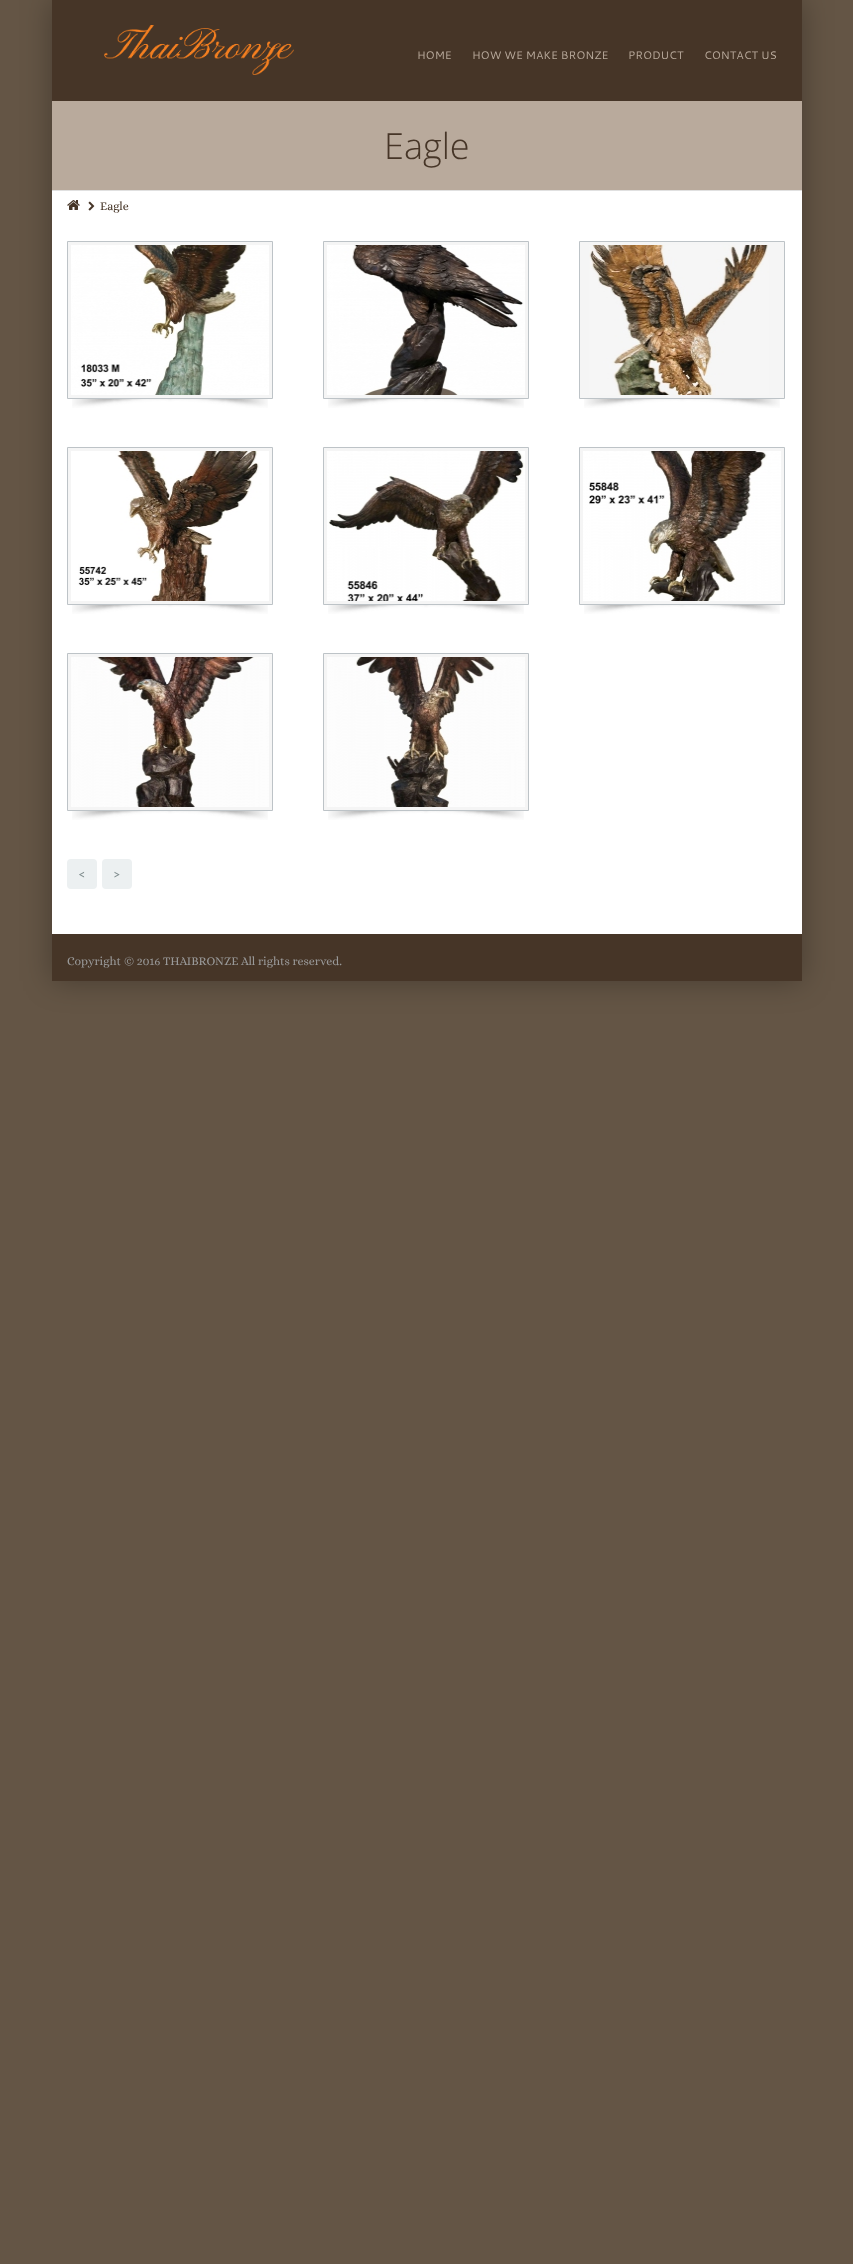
async function draw(canvas) {
  canvas.width = 853
  canvas.height = 2264
  const ctx = canvas.getContext('2d')
  ctx.miterLimit = 4
  ctx.fontKerning = 'normal'
  async function loadImage(src) {
    const img = new Image()
    img.src = src
    await img.decode()
    return img
  }

  ctx.fillStyle = '#645545'
  ctx.fillRect(0, 0, 853, 2264)
  ctx.fillStyle = '#0000004d'
  ctx.filter = 'blur(15px)'
  ctx.beginPath()
  ctx.rect(52, 0, 750, 981)
  ctx.fill()
  ctx.filter = 'none'
  ctx.fillStyle = '#fff'
  ctx.fillRect(52, 191, 750, 743)
  ctx.fillStyle = '#463527'
  ctx.fillRect(52, 0, 750, 101)
  ctx.drawImage(await loadImage('image0.png'), 104, 25, 190, 50)
  ctx.font = '11px Cantarell'
  ctx.fillStyle = '#b9aa9c'
  ctx.fillText('HOME', 417, 59)
  ctx.fillText('HOW WE MAKE BRONZE', 472, 59)
  ctx.fillText('PRODUCT', 628, 59)
  ctx.fillText('CONTACT US', 704, 59)
  ctx.fillRect(52, 101, 750, 89)
  ctx.font = '300 36px Open Sans'
  ctx.fillStyle = '#463527'
  ctx.fillText('Eagle', 384, 159)
  ctx.fillStyle = '#e0e0e0'
  ctx.fillRect(52, 190, 750, 1)
  ctx.drawImage(await loadImage('image1.png'), 67, 200, 13, 10)
  ctx.drawImage(await loadImage('image2.png'), 88, 201, 7, 10)
  ctx.font = '12px Alice'
  ctx.fillStyle = '#463527'
  ctx.fillText('Eagle', 100, 210)
  ctx.fillStyle = '#f5f5f5'
  ctx.beginPath()
  ctx.rect(67.5, 241.5, 205, 157)
  ctx.fill()
  ctx.strokeStyle = '#bdc3c7'
  ctx.stroke()
  ctx.drawImage(await loadImage('image3.png'), 71, 245, 198, 150)
  ctx.drawImage(await loadImage('image4.png'), 72, 399, 196, 9)
  ctx.beginPath()
  ctx.rect(323.5, 241.5, 205, 157)
  ctx.fill()
  ctx.stroke()
  ctx.drawImage(await loadImage('image5.png'), 327, 245, 198, 150)
  ctx.drawImage(await loadImage('image4.png'), 328, 399, 196, 9)
  ctx.beginPath()
  ctx.rect(579.5, 241.5, 205, 157)
  ctx.fill()
  ctx.stroke()
  ctx.drawImage(await loadImage('image6.png'), 589, 245, 180, 150)
  ctx.drawImage(await loadImage('image7.png'), 584, 399, 196, 9)
  ctx.beginPath()
  ctx.rect(67.5, 447.5, 205, 157)
  ctx.fill()
  ctx.stroke()
  ctx.drawImage(await loadImage('image8.png'), 71, 451, 198, 150)
  ctx.drawImage(await loadImage('image4.png'), 72, 605, 196, 9)
  ctx.beginPath()
  ctx.rect(323.5, 447.5, 205, 157)
  ctx.fill()
  ctx.stroke()
  ctx.drawImage(await loadImage('image9.png'), 327, 451, 198, 150)
  ctx.drawImage(await loadImage('image4.png'), 328, 605, 196, 9)
  ctx.beginPath()
  ctx.rect(579.5, 447.5, 205, 157)
  ctx.fill()
  ctx.stroke()
  ctx.drawImage(await loadImage('image10.png'), 583, 451, 198, 150)
  ctx.drawImage(await loadImage('image7.png'), 584, 605, 196, 9)
  ctx.beginPath()
  ctx.rect(67.5, 653.5, 205, 157)
  ctx.fill()
  ctx.stroke()
  ctx.drawImage(await loadImage('image11.png'), 71, 657, 198, 150)
  ctx.drawImage(await loadImage('image4.png'), 72, 811, 196, 9)
  ctx.beginPath()
  ctx.rect(323.5, 653.5, 205, 157)
  ctx.fill()
  ctx.stroke()
  ctx.drawImage(await loadImage('image12.png'), 327, 657, 198, 150)
  ctx.drawImage(await loadImage('image4.png'), 328, 811, 196, 9)
  ctx.fillStyle = '#ecf0f1'
  ctx.beginPath()
  ctx.roundRect(67, 859, 30, 30, 4)
  ctx.fill()
  ctx.font = '13px Lato'
  ctx.fillStyle = '#7f8c8d'
  ctx.fillText('<', 78, 879)
  ctx.fillStyle = '#ecf0f1'
  ctx.beginPath()
  ctx.roundRect(102, 859, 30, 30, 4)
  ctx.fill()
  ctx.fillStyle = '#7f8c8d'
  ctx.fillText('>', 113, 879)
  ctx.fillStyle = '#463527'
  ctx.fillRect(52, 934, 750, 47)
  ctx.font = '12px Alice'
  ctx.fillStyle = '#999'
  ctx.fillText('Copyright © 2016 THAIBRONZE All rights reserved.', 67, 965)
}

draw(document.querySelector('canvas'))
